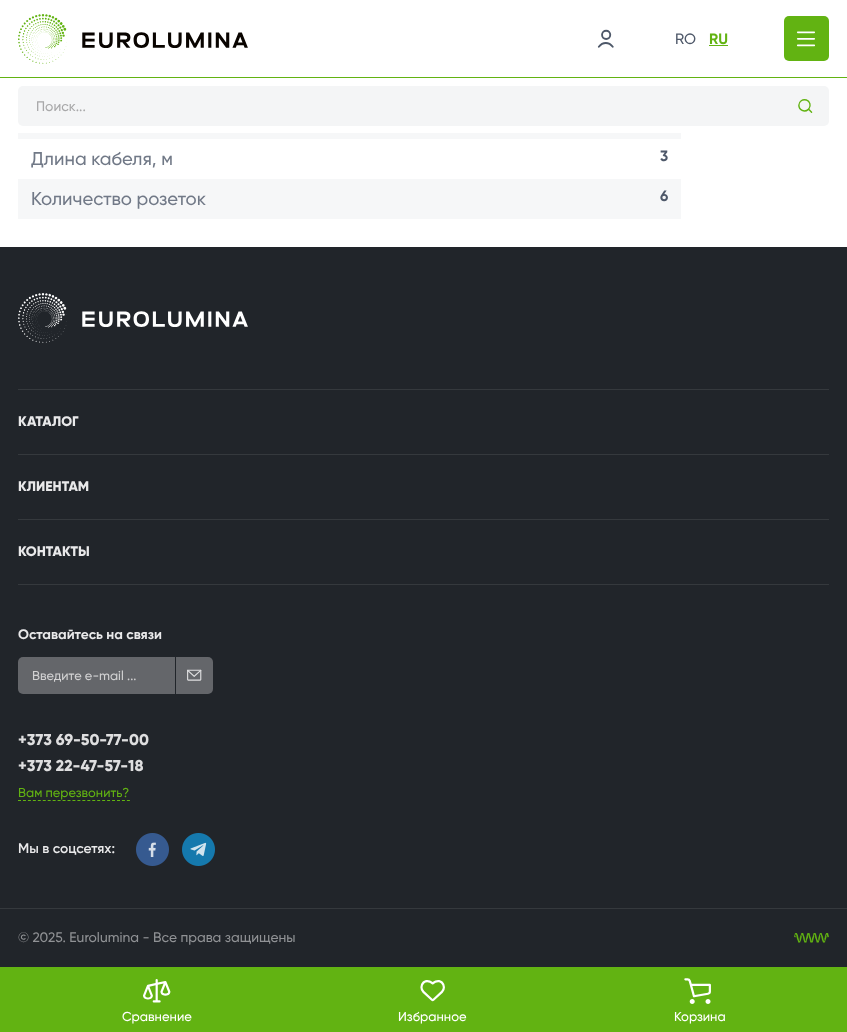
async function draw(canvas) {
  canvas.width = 847
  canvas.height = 1032
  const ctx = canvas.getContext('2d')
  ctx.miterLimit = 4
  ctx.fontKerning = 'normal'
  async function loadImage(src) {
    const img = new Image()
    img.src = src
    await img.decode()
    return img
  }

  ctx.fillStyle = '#fff'
  ctx.fillRect(0, 0, 847, 1032)
  ctx.fillStyle = '#62b312'
  ctx.fillRect(0, 77, 847, 1)
  ctx.drawImage(await loadImage('image0.png'), 18, 14, 230, 50)
  ctx.drawImage(await loadImage('image1.png'), 597, 29, 17, 19)
  ctx.font = '500 15px Gilroy'
  ctx.fillStyle = '#4e5869'
  ctx.fillText('RO', 675, 44)
  ctx.font = 'bold 15px Gilroy'
  ctx.fillStyle = '#62b312'
  ctx.fillText('RU', 709, 44)
  ctx.fillRect(709, 45, 19, 1)
  ctx.beginPath()
  ctx.roundRect(784, 16, 45, 45, 5)
  ctx.fill()
  ctx.drawImage(await loadImage('image2.png'), 796, 31, 19, 16)
  ctx.fillStyle = '#f4f5f6'
  ctx.beginPath()
  ctx.roundRect(18, 86, 811, 40, 5)
  ctx.fill()
  ctx.font = '500 13.8px Gilroy'
  ctx.fillStyle = '#a8a8a9'
  ctx.fillText('Поиск...', 36, 111)
  ctx.drawImage(await loadImage('image3.png'), 798, 99, 15, 14)
  ctx.fillStyle = '#f6f7f8'
  ctx.fillRect(18, 133, 663, 6)
  ctx.font = '500 18.5px Gilroy'
  ctx.fillStyle = '#717987'
  ctx.fillText('Длина кабеля, м', 31, 165)
  ctx.font = 'bold 15px Gilroy'
  ctx.fillStyle = '#4e5869'
  ctx.fillText('3', 660, 161)
  ctx.fillStyle = '#f6f7f8'
  ctx.fillRect(18, 179, 663, 40)
  ctx.font = '500 18.5px Gilroy'
  ctx.fillStyle = '#717987'
  ctx.fillText('Количество розеток', 31, 205)
  ctx.font = 'bold 15px Gilroy'
  ctx.fillStyle = '#4e5869'
  ctx.fillText('6', 660, 201)
  ctx.fillStyle = '#21252a'
  ctx.fillRect(0, 247, 847, 720)
  ctx.drawImage(await loadImage('image4.png'), 18, 293, 230, 50)
  ctx.fillStyle = '#35393d'
  ctx.fillRect(18, 389, 811, 1)
  ctx.font = '800 13.8px Gilroy'
  ctx.fillStyle = '#e9e9ea'
  ctx.fillText('КАТАЛОГ', 18, 426)
  ctx.fillStyle = '#35393d'
  ctx.fillRect(18, 454, 811, 1)
  ctx.fillStyle = '#e9e9ea'
  ctx.fillText('КЛИЕНТАМ', 18, 491)
  ctx.fillStyle = '#35393d'
  ctx.fillRect(18, 519, 811, 1)
  ctx.fillStyle = '#e9e9ea'
  ctx.fillText('КОНТАКТЫ', 18, 556)
  ctx.fillStyle = '#35393d'
  ctx.fillRect(18, 584, 811, 1)
  ctx.font = 'bold 13.8px Gilroy'
  ctx.fillStyle = '#e9e9ea'
  ctx.fillText('Оставайтесь на связи', 18, 639)
  ctx.fillStyle = '#64666a'
  ctx.beginPath()
  ctx.roundRect(18, 657, 157, 37, [5, 0, 0, 5])
  ctx.fill()
  ctx.font = '500 12.9px Gilroy'
  ctx.fillStyle = '#d1d1d2'
  ctx.fillText('Введите e-mail ...', 32, 680)
  ctx.fillStyle = '#64666a'
  ctx.beginPath()
  ctx.roundRect(176, 657, 37, 37, [0, 5, 5, 0])
  ctx.fill()
  ctx.drawImage(await loadImage('image5.png'), 187, 669, 15, 12)
  ctx.font = '800 15.75px Gilroy'
  ctx.fillStyle = '#dededf'
  ctx.fillText('+373 69-50-77-00', 18, 745)
  ctx.fillText('+373 22-47-57-18', 18, 771)
  ctx.font = '500 12.9px Gilroy'
  ctx.fillStyle = '#62b312'
  ctx.fillText('Вам перезвонить?', 18, 797)
  ctx.beginPath()
  ctx.moveTo(18, 800.5)
  ctx.lineTo(130, 800.5)
  ctx.strokeStyle = '#62b312'
  ctx.setLineDash([3, 1.95])
  ctx.stroke()
  ctx.font = '600 13.8px Gilroy'
  ctx.fillStyle = '#e9e9ea'
  ctx.fillText('Мы в соцсетях:', 18, 853)
  ctx.drawImage(await loadImage('image6.png'), 136, 833, 33, 33)
  ctx.drawImage(await loadImage('image7.png'), 182, 833, 33, 33)
  ctx.fillStyle = '#35393d'
  ctx.fillRect(0, 908, 847, 1)
  ctx.font = '500 13.8px Gilroy'
  ctx.fillStyle = '#909295'
  ctx.fillText('© 2025. Eurolumina - Все права защищены', 18, 942)
  ctx.drawImage(await loadImage('image8.png'), 794, 933, 35, 10)
  ctx.fillStyle = '#62b312'
  ctx.fillRect(0, 967, 847, 65)
  ctx.drawImage(await loadImage('image9.png'), 143, 979, 28, 24)
  ctx.font = '500 13px Gilroy'
  ctx.fillStyle = '#fff'
  ctx.fillText('Сравнение', 122, 1021)
  ctx.drawImage(await loadImage('image10.png'), 420, 980, 25, 22)
  ctx.fillText('Избранное', 398, 1021)
  ctx.drawImage(await loadImage('image11.png'), 684, 978, 27, 26)
  ctx.fillText('Корзина', 674, 1021)
}

draw(document.querySelector('canvas'))
